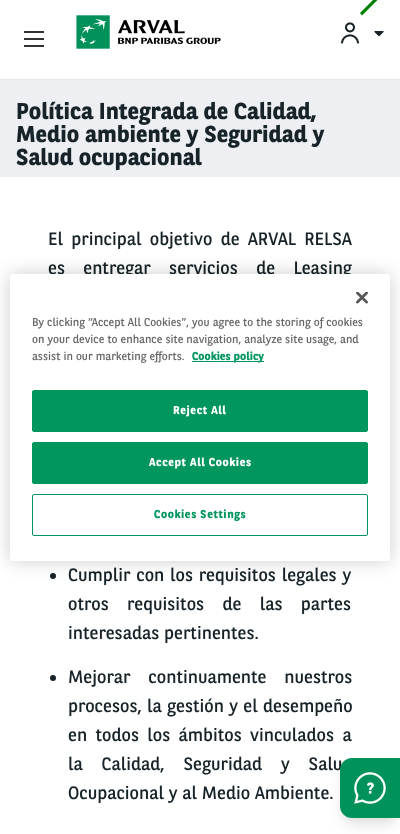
async function draw(canvas) {
  canvas.width = 400
  canvas.height = 834
  const ctx = canvas.getContext('2d')
  ctx.miterLimit = 4
  ctx.fontKerning = 'normal'
  async function loadImage(src) {
    const img = new Image()
    img.src = src
    await img.decode()
    return img
  }

  ctx.fillStyle = '#edeff2'
  ctx.fillRect(0, 0, 400, 834)
  ctx.fillStyle = '#fff'
  ctx.fillRect(0, 0, 400, 79)
  ctx.fillStyle = '#e6e6e6'
  ctx.fillRect(0, 79, 400, 1)
  ctx.drawImage(await loadImage('image0.png'), 76, 15, 145, 34)
  ctx.drawImage(await loadImage('image1.png'), 341, 22, 18, 22)
  ctx.drawImage(await loadImage('image2.png'), 374, 31, 10, 6)
  ctx.fillStyle = '#008000'
  ctx.beginPath()
  ctx.moveTo(360, 13)
  ctx.lineTo(388, -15)
  ctx.lineTo(390.5, -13)
  ctx.lineTo(362, 15.5)
  ctx.closePath()
  ctx.fill()
  ctx.fillStyle = '#333'
  ctx.fillRect(24, 31, 20, 2)
  ctx.fillRect(24, 38, 20, 2)
  ctx.fillRect(24, 45, 20, 2)
  ctx.font = 'bold 23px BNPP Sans'
  ctx.fillStyle = '#172328'
  ctx.fillText('Política Integrada de Calidad,', 16, 119)
  ctx.fillText('Medio ambiente y Seguridad y', 16, 142)
  ctx.fillText('Salud ocupacional', 16, 165)
  ctx.fillStyle = '#fff'
  ctx.fillRect(0, 177, 400, 657)
  ctx.wordSpacing = '3.5px'
  ctx.font = '18px BNPP Sans'
  ctx.fillStyle = '#172328'
  ctx.fillText('El principal objetivo de ARVAL RELSA', 48, 245)
  ctx.wordSpacing = '13.5px'
  ctx.fillText('es entregar servicios de Leasing', 48, 274)
  ctx.beginPath()
  ctx.arc(53, 576, 3, 0, 2 * Math.PI)
  ctx.fill()
  ctx.wordSpacing = '1px'
  ctx.fillText('Cumplir con los requisitos legales y', 68, 581)
  ctx.wordSpacing = '13.5px'
  ctx.fillText('otros requisitos de las partes', 68, 610)
  ctx.wordSpacing = '0px'
  ctx.fillText('interesadas pertinentes.', 68, 639)
  ctx.beginPath()
  ctx.arc(53, 678, 3, 0, 2 * Math.PI)
  ctx.fill()
  ctx.wordSpacing = '13px'
  ctx.fillText('Mejorar continuamente nuestros', 68, 683)
  ctx.wordSpacing = '0.5px'
  ctx.fillText('procesos, la gestión y el desempeño', 68, 712)
  ctx.wordSpacing = '3.5px'
  ctx.fillText('en todos los ámbitos vinculados a', 68, 741)
  ctx.wordSpacing = '14px'
  ctx.fillText('la Calidad, Seguridad y Salu', 68, 770)
  ctx.wordSpacing = '0px'
  ctx.fillText('Ocupacional y al Medio Ambiente.', 68, 799)
  ctx.fillStyle = '#0000000d'
  ctx.filter = 'blur(3px)'
  ctx.beginPath()
  ctx.roundRect(342, 764, 56, 56, 10)
  ctx.fill()
  ctx.filter = 'none'
  ctx.fillStyle = '#0000001a'
  ctx.filter = 'blur(7.5px)'
  ctx.beginPath()
  ctx.roundRect(343, 771, 54, 54, 9)
  ctx.fill()
  ctx.filter = 'none'
  ctx.fillStyle = '#00925b'
  ctx.beginPath()
  ctx.roundRect(340, 758, 60, 60, [12, 0, 0, 12])
  ctx.fill()
  ctx.drawImage(await loadImage('image3.png'), 354, 772, 32, 32)
  ctx.fillStyle = '#00000033'
  ctx.filter = 'blur(9px)'
  ctx.beginPath()
  ctx.roundRect(10, 274, 380, 287, 2.5)
  ctx.fill()
  ctx.filter = 'none'
  ctx.fillStyle = '#fff'
  ctx.beginPath()
  ctx.roundRect(10, 274, 380, 287, 2.5)
  ctx.fill()
  ctx.drawImage(await loadImage('image4.png'), 356, 292, 12, 12)
  ctx.font = '11.4px BNPP Sans'
  ctx.fillStyle = '#696969'
  ctx.fillText('By clicking “Accept All Cookies”, you agree to the storing of cookies', 32, 326)
  ctx.fillText('on your device to enhance site navigation, analyze site usage, and', 32, 343)
  ctx.fillText('assist in our marketing efforts.', 32, 360)
  ctx.fillStyle = '#00965e'
  ctx.fillRect(192, 361, 72, 1)
  ctx.font = 'bold 11.4px BNPP Sans'
  ctx.fillText('Cookies policy', 192, 360)
  ctx.beginPath()
  ctx.roundRect(32.5, 390.5, 335, 41, 1.5)
  ctx.fill()
  ctx.strokeStyle = '#00965e'
  ctx.stroke()
  ctx.letterSpacing = '0.6px'
  ctx.fillStyle = '#fff'
  ctx.fillText('Reject All', 173, 414)
  ctx.fillStyle = '#00965e'
  ctx.beginPath()
  ctx.roundRect(32.5, 442.5, 335, 41, 1.5)
  ctx.fill()
  ctx.stroke()
  ctx.fillStyle = '#fff'
  ctx.fillText('Accept All Cookies', 149, 466)
  ctx.beginPath()
  ctx.roundRect(32.5, 494.5, 335, 41, 1.5)
  ctx.stroke()
  ctx.fillStyle = '#00965e'
  ctx.fillText('Cookies Settings', 154, 518)
}

draw(document.querySelector('canvas'))
